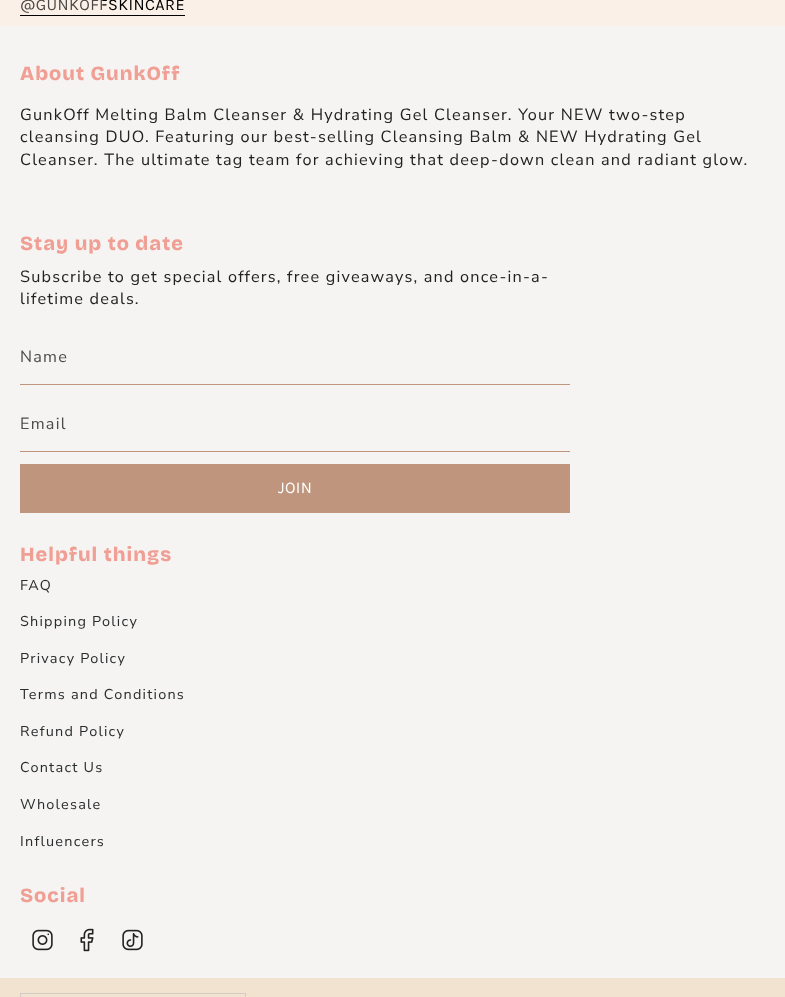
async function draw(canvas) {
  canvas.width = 785
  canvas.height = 997
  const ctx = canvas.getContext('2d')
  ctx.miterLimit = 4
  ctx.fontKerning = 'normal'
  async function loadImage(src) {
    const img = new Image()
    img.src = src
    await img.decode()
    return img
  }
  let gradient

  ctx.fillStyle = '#fbf0e7'
  ctx.fillRect(0, 0, 785, 997)
  ctx.letterSpacing = '0.4px'
  ctx.font = '16.25px Karla'
  gradient = ctx.createLinearGradient(20, 4.7, 185, 4.7)
  gradient.addColorStop(0, '#4b4845')
  gradient.addColorStop(0.5, '#4b4845')
  gradient.addColorStop(0.5, '#000')
  gradient.addColorStop(1, '#000')
  ctx.fillStyle = gradient
  ctx.fillText('@GUNKOFFSKINCARE', 20, 10)
  ctx.fillStyle = '#000'
  ctx.fillRect(20, 15, 165, 1)
  ctx.fillStyle = '#f6f4f2'
  ctx.fillRect(0, 26, 785, 952)
  ctx.letterSpacing = '1px'
  ctx.font = '800 20px Bricolage Grotesque'
  ctx.fillStyle = '#f09f95'
  ctx.fillText('About GunkOff', 20, 80)
  ctx.letterSpacing = '1.22px'
  ctx.font = '16.25px Nunito Sans'
  ctx.fillStyle = '#212121'
  ctx.fillText('GunkOff Melting Balm Cleanser & Hydrating Gel Cleanser. Your NEW two-step', 20, 120)
  ctx.fillText('cleansing DUO. Featuring our best-selling Cleansing Balm & NEW Hydrating Gel', 20, 142)
  ctx.fillText('Cleanser. The ultimate tag team for achieving that deep-down clean and radiant glow.', 20, 165)
  ctx.letterSpacing = '1px'
  ctx.font = '800 20px Bricolage Grotesque'
  ctx.fillStyle = '#f09f95'
  ctx.fillText('Stay up to date', 20, 250)
  ctx.letterSpacing = '1.22px'
  ctx.font = '16.25px Nunito Sans'
  ctx.fillStyle = '#212121'
  ctx.fillText('Subscribe to get special offers, free giveaways, and once-in-a-', 20, 282)
  ctx.fillText('lifetime deals.', 20, 304)
  ctx.fillStyle = '#bf967d'
  ctx.fillRect(20, 384, 550, 1)
  ctx.fillStyle = '#4c4b4b'
  ctx.fillText('Name', 20, 362)
  ctx.fillStyle = '#bf967d'
  ctx.fillRect(20, 451, 550, 1)
  ctx.fillStyle = '#4c4b4b'
  ctx.fillText('Email', 20, 429)
  ctx.fillStyle = '#bf967d'
  ctx.fillRect(20, 464, 550, 49)
  ctx.letterSpacing = '0.4px'
  ctx.font = '16.25px Karla'
  ctx.fillStyle = '#fff'
  ctx.fillText('JOIN', 278, 493)
  ctx.letterSpacing = '1px'
  ctx.font = '800 20px Bricolage Grotesque'
  ctx.fillStyle = '#f09f95'
  ctx.fillText('Helpful things', 20, 561)
  ctx.letterSpacing = '1.22px'
  ctx.font = '14.25px "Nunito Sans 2"'
  ctx.fillStyle = '#282c2e'
  ctx.fillText('FAQ', 20, 590)
  ctx.fillText('Shipping Policy', 20, 626)
  ctx.fillText('Privacy Policy', 20, 663)
  ctx.fillText('Terms and Conditions', 20, 699)
  ctx.fillText('Refund Policy', 20, 736)
  ctx.fillText('Contact Us', 20, 772)
  ctx.fillText('Wholesale', 20, 809)
  ctx.fillText('Influencers', 20, 846)
  ctx.letterSpacing = '1px'
  ctx.font = '800 20px Bricolage Grotesque'
  ctx.fillStyle = '#f09f95'
  ctx.fillText('Social', 20, 902)
  ctx.drawImage(await loadImage('image0.png'), 32, 929, 21, 22)
  ctx.drawImage(await loadImage('image1.png'), 80, 928, 14, 24)
  ctx.drawImage(await loadImage('image2.png'), 122, 929, 21, 22)
  ctx.fillStyle = '#f2e3d1'
  ctx.fillRect(0, 978, 785, 19)
  ctx.strokeStyle = '#d1cdc4'
  ctx.strokeRect(20.5, 993.5, 225, 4)
}

draw(document.querySelector('canvas'))
